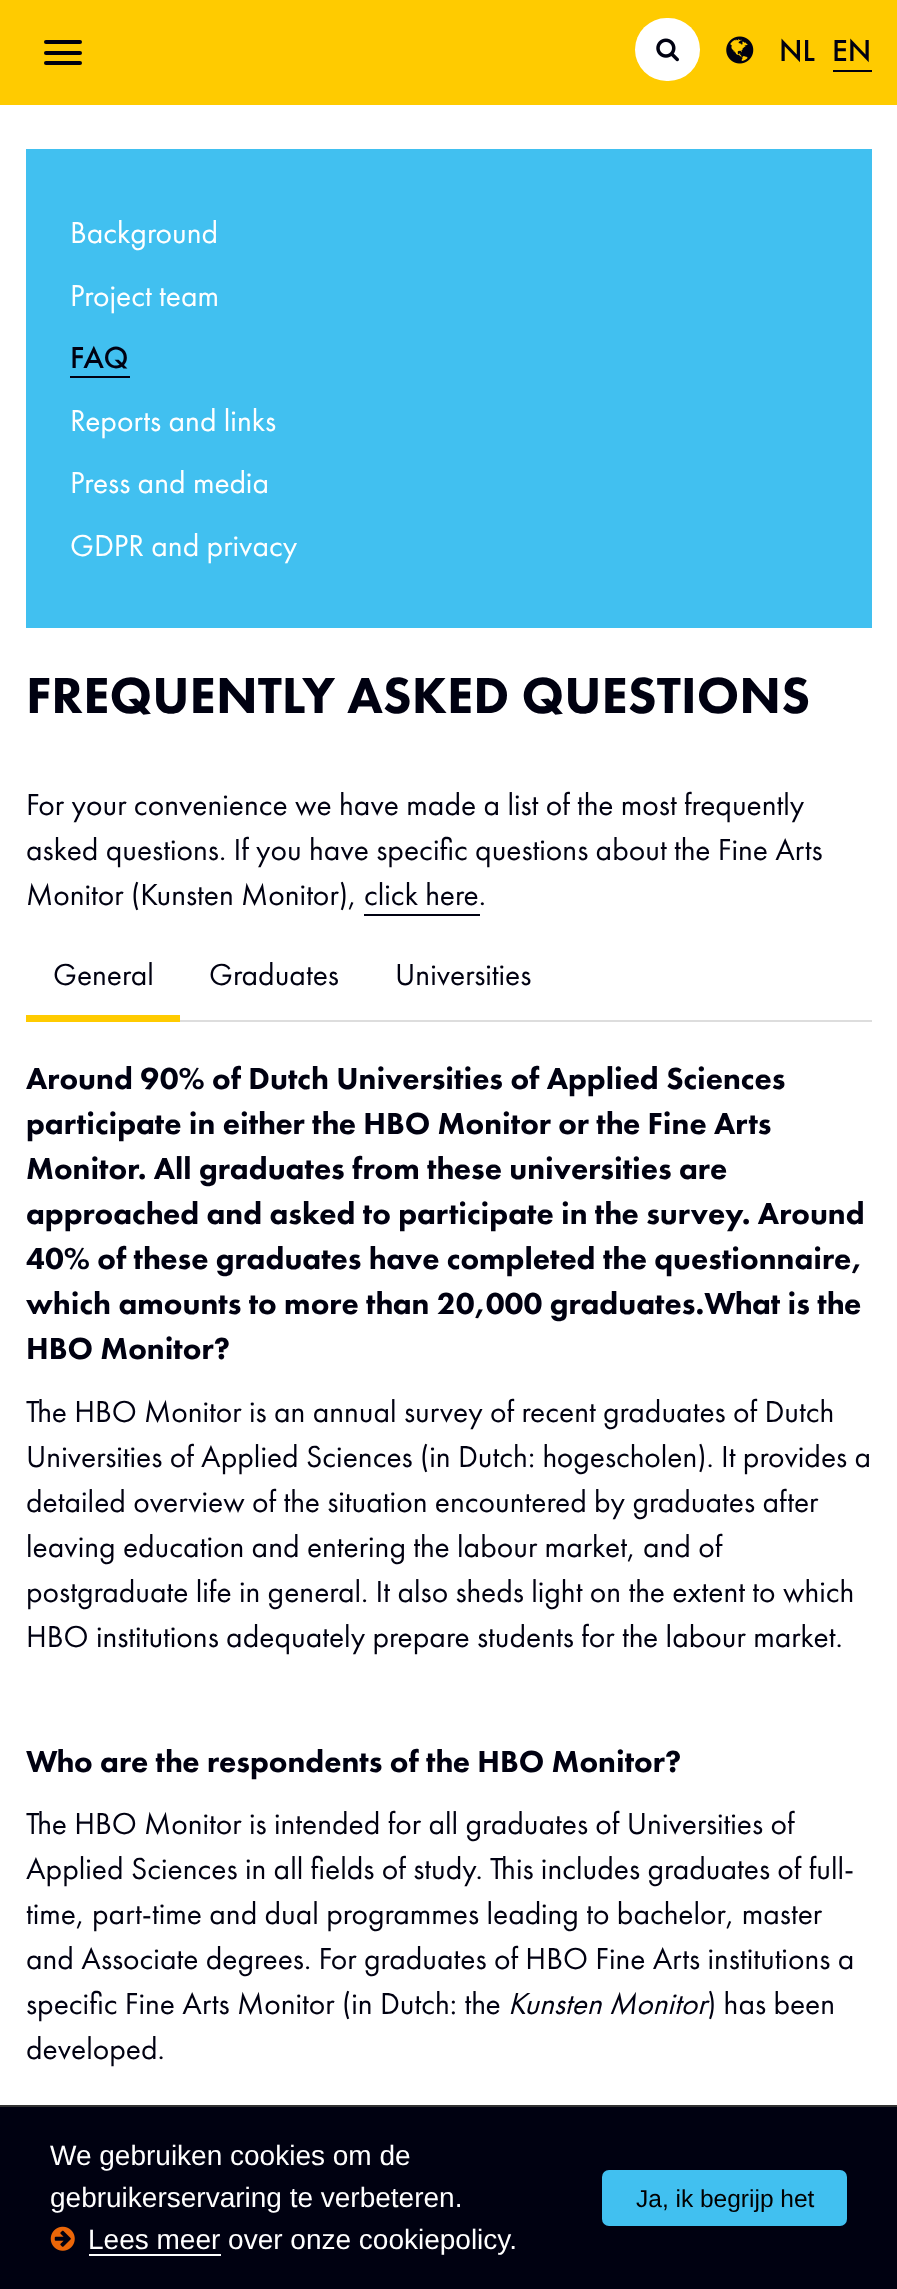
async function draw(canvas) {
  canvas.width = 897
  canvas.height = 2289
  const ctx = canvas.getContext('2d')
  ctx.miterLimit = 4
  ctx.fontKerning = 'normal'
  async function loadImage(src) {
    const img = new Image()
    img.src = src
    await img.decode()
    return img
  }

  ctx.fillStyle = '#fff'
  ctx.fillRect(0, 0, 897, 2289)
  ctx.fillStyle = '#ffcb00'
  ctx.fillRect(0, 0, 897, 105)
  ctx.fillStyle = '#000111'
  ctx.beginPath()
  ctx.roundRect(44, 40, 38, 4, 2)
  ctx.fill()
  ctx.beginPath()
  ctx.roundRect(44, 51, 38, 4, 2)
  ctx.fill()
  ctx.beginPath()
  ctx.roundRect(44, 61, 38, 4, 2)
  ctx.fill()
  ctx.fillStyle = '#fff'
  ctx.beginPath()
  ctx.roundRect(635, 18, 65, 63, 31.5)
  ctx.fill()
  ctx.drawImage(await loadImage('image0.png'), 656, 38, 23, 24)
  ctx.drawImage(await loadImage('image1.png'), 726, 36, 28, 28)
  ctx.font = '500 31.5px Futura PT'
  ctx.fillStyle = '#000111'
  ctx.fillText('NL', 779, 61)
  ctx.fillText('EN', 832, 61)
  ctx.fillRect(833, 70, 39, 2)
  ctx.fillStyle = '#41c0f0'
  ctx.fillRect(26, 149, 846, 479)
  ctx.font = '31.5px Futura PT'
  ctx.fillStyle = '#fff'
  ctx.fillText('Background', 70, 243)
  ctx.fillText('Project team', 70, 306)
  ctx.font = '500 31.5px Futura PT'
  ctx.fillStyle = '#000111'
  ctx.fillText('FAQ', 70, 368)
  ctx.fillRect(70, 376, 60, 2)
  ctx.font = '31.5px Futura PT'
  ctx.fillStyle = '#fff'
  ctx.fillText('Reports and links', 70, 431)
  ctx.fillText('Press and media', 70, 493)
  ctx.fillText('GDPR and privacy', 70, 556)
  ctx.font = '900 52.5px Futura PT'
  ctx.fillStyle = '#000111'
  ctx.fillText('FREQUENTLY ASKED QUESTIONS', 26, 713)
  ctx.font = '31.5px Futura PT'
  ctx.fillText('For your convenience we have made a list of the most frequently', 26, 815)
  ctx.fillText('asked questions. If you have specific questions about the Fine Arts', 26, 860)
  ctx.fillText('Monitor (Kunsten Monitor), click here.', 26, 905)
  ctx.fillRect(364, 914, 116, 2)
  ctx.fillStyle = '#ddd'
  ctx.fillRect(180, 1020, 692, 2)
  ctx.fillStyle = '#ffcb00'
  ctx.fillRect(26, 1015, 154, 7)
  ctx.fillStyle = '#000111'
  ctx.fillText('General', 53, 985)
  ctx.fillText('Graduates', 209, 985)
  ctx.fillText('Universities', 395, 985)
  ctx.font = '900 31.5px Futura PT'
  ctx.fillText('Around 90% of Dutch Universities of Applied Sciences', 26, 1089)
  ctx.fillText('participate in either the HBO Monitor or the Fine Arts', 26, 1134)
  ctx.fillText('Monitor. All graduates from these universities are', 26, 1179)
  ctx.fillText('approached and asked to participate in the survey. Around', 26, 1224)
  ctx.fillText('40% of these graduates have completed the questionnaire,', 26, 1269)
  ctx.fillText('which amounts to more than 20,000 graduates.What is the', 26, 1314)
  ctx.fillText('HBO Monitor?', 26, 1359)
  ctx.font = '31.5px Futura PT'
  ctx.fillText('The HBO Monitor is an annual survey of recent graduates of Dutch', 26, 1422)
  ctx.fillText('Universities of Applied Sciences (in Dutch: hogescholen). It provides a', 26, 1467)
  ctx.fillText('detailed overview of the situation encountered by graduates after', 26, 1512)
  ctx.fillText('leaving education and entering the labour market, and of', 26, 1557)
  ctx.fillText('postgraduate life in general. It also sheds light on the extent to which', 26, 1602)
  ctx.fillText('HBO institutions adequately prepare students for the labour market.', 26, 1647)
  ctx.font = '900 31.5px Futura PT'
  ctx.fillText('Who are the respondents of the HBO Monitor?', 26, 1772)
  ctx.font = '31.5px Futura PT'
  ctx.fillText('The HBO Monitor is intended for all graduates of Universities of', 26, 1834)
  ctx.fillText('Applied Sciences in all fields of study. This includes graduates of full-', 26, 1879)
  ctx.fillText('time, part-time and dual programmes leading to bachelor, master', 26, 1924)
  ctx.fillText('and Associate degrees. For graduates of HBO Fine Arts institutions a', 26, 1969)
  ctx.fillText('specific Fine Arts Monitor (in Dutch: the', 26, 2014)
  ctx.font = 'italic 31.5px Futura PT'
  ctx.fillText('Kunsten Monitor', 508, 2014)
  ctx.font = '31.5px Futura PT'
  ctx.fillText(') has been', 707, 2014)
  ctx.fillText('developed.', 26, 2059)
  ctx.fillRect(0, 2107, 897, 182)
  ctx.fillStyle = '#333'
  ctx.fillRect(0, 2105, 897, 2)
  ctx.font = '28px Liberation Sans'
  ctx.fillStyle = '#fff'
  ctx.fillText('We gebruiken cookies om de', 50, 2165)
  ctx.fillText('gebruikerservaring te verbeteren.', 50, 2207)
  ctx.drawImage(await loadImage('image2.png'), 50, 2226, 25, 25)
  ctx.fillRect(89, 2254, 132, 2)
  ctx.fillText('Lees meer over onze cookiepolicy.', 88, 2249)
  ctx.fillStyle = '#41c0f0'
  ctx.beginPath()
  ctx.roundRect(602, 2170, 245, 56, 7)
  ctx.fill()
  ctx.font = '24.5px Liberation Sans'
  ctx.fillStyle = '#000'
  ctx.fillText('Ja, ik begrijp het', 636, 2207)
}

draw(document.querySelector('canvas'))
